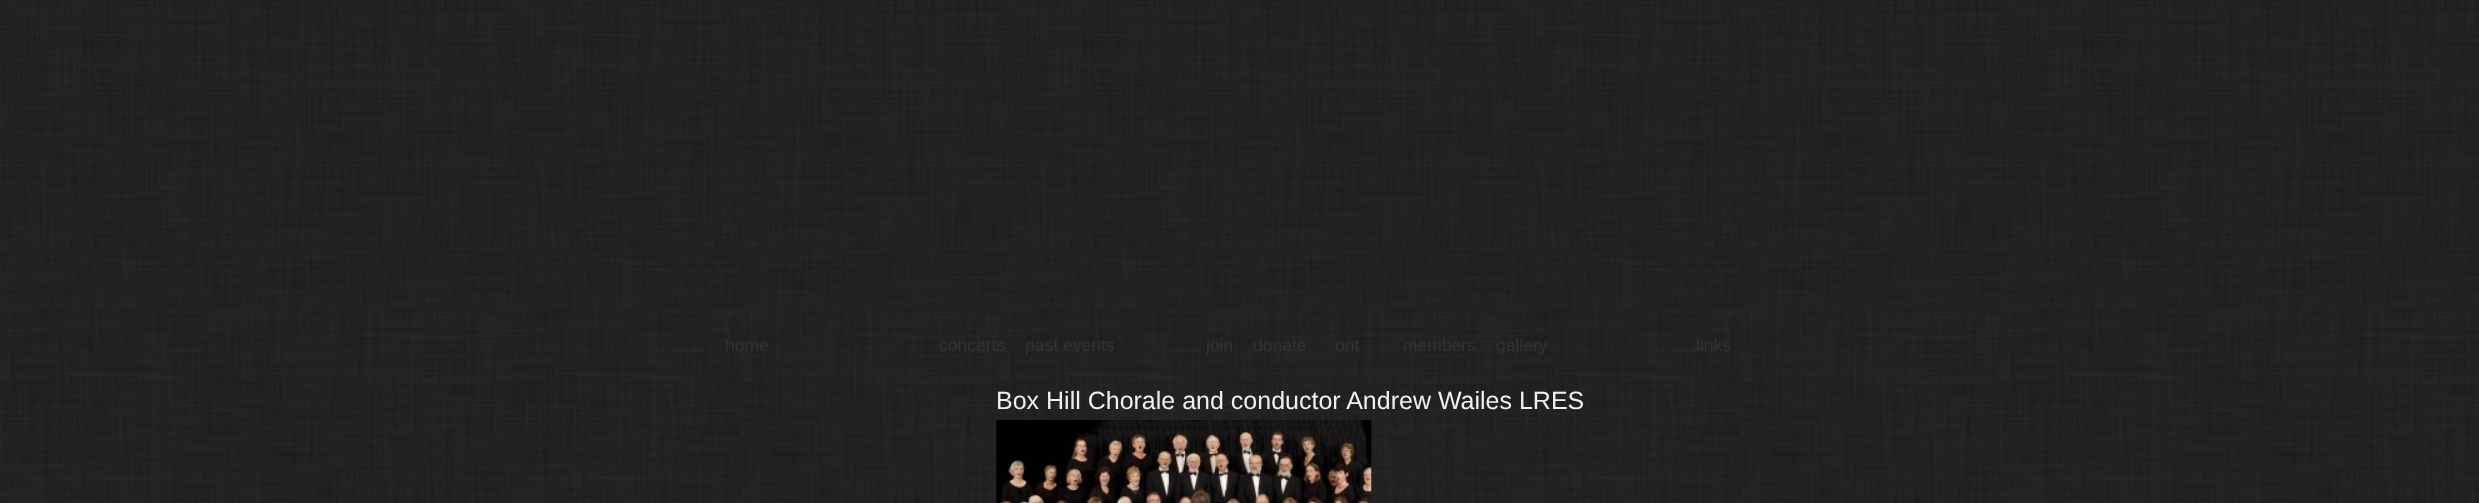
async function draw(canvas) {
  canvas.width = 2479
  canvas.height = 503
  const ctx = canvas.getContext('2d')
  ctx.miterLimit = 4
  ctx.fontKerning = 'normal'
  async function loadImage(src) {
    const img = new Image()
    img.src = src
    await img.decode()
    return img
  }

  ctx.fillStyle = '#fff'
  ctx.fillRect(0, 0, 2479, 503)
  ctx.drawImage(await loadImage('image0.png'), 0, 0, 2479, 503)
  ctx.font = '17.5px Liberation Sans'
  ctx.fillStyle = '#333'
  ctx.fillText('home', 725, 351)
  ctx.fillText('concerts', 939, 351)
  ctx.fillText('past events', 1025, 351)
  ctx.fillText('join', 1206, 351)
  ctx.fillText('donate', 1253, 351)
  ctx.fillText('ont', 1335, 351)
  ctx.fillText('members', 1403, 351)
  ctx.fillText('gallery', 1496, 351)
  ctx.fillText('links', 1696, 351)
  ctx.font = '25px Liberation Sans'
  ctx.fillStyle = '#f0f0f0'
  ctx.fillText('Box Hill Chorale and conductor Andrew Wailes LRES', 996, 409)
  ctx.drawImage(await loadImage('image1.png'), 996, 420, 376, 83)
}

draw(document.querySelector('canvas'))
